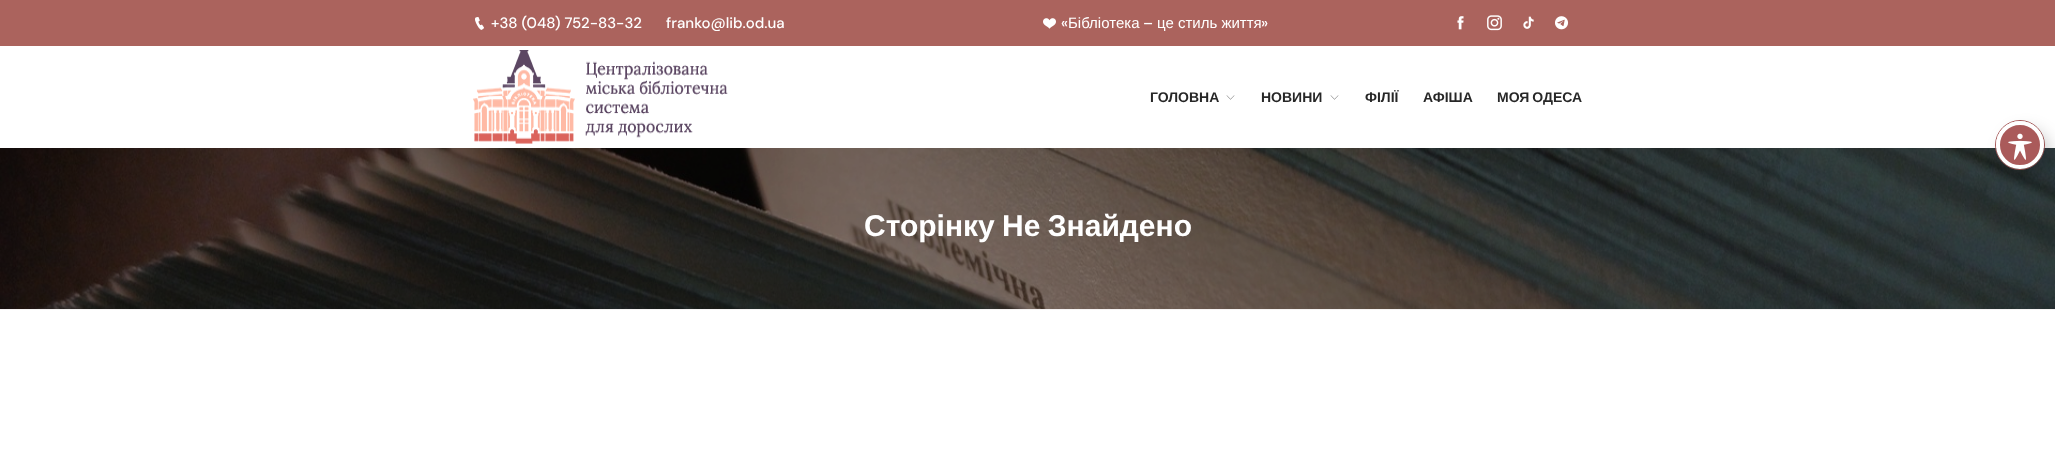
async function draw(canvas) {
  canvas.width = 2055
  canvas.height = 476
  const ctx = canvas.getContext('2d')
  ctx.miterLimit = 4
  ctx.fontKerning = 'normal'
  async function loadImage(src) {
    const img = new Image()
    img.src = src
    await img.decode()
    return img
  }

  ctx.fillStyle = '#fff'
  ctx.fillRect(0, 0, 2055, 476)
  ctx.fillStyle = '#ab635d'
  ctx.fillRect(0, 0, 2055, 46)
  ctx.drawImage(await loadImage('image0.png'), 475, 17, 9, 13)
  ctx.font = '500 15px DM Sans'
  ctx.fillStyle = '#fff'
  ctx.fillText('+38 (048) 752-83-32', 491, 28)
  ctx.fillText('franko@lib.od.ua', 666, 28)
  ctx.drawImage(await loadImage('image1.png'), 1043, 18, 13, 11)
  ctx.fillText('«', 1061, 28)
  ctx.font = '15px Liberation Sans'
  ctx.fillText('Бібліотека', 1068, 28)
  ctx.font = '500 15px DM Sans'
  ctx.fillText('–', 1143, 28)
  ctx.font = '15px Liberation Sans'
  ctx.fillText('це стиль життя', 1157, 28)
  ctx.font = '500 15px DM Sans'
  ctx.fillText('»', 1261, 28)
  ctx.drawImage(await loadImage('image2.png'), 1457, 16, 7, 14)
  ctx.drawImage(await loadImage('image3.png'), 1487, 15, 15, 16)
  ctx.drawImage(await loadImage('image4.png'), 1523, 16, 11, 13)
  ctx.drawImage(await loadImage('image5.png'), 1555, 16, 14, 14)
  ctx.drawImage(await loadImage('image6.png'), 473, 50, 255, 94)
  ctx.font = 'bold 14px Liberation Sans'
  ctx.fillStyle = '#272727'
  ctx.fillText('ГОЛОВНА', 1150, 102)
  ctx.drawImage(await loadImage('image7.png'), 1226, 95, 9, 5)
  ctx.fillText('НОВИНИ', 1261, 102)
  ctx.drawImage(await loadImage('image7.png'), 1330, 95, 9, 5)
  ctx.fillText('ФІЛІЇ', 1365, 102)
  ctx.fillText('АФІША', 1423, 102)
  ctx.wordSpacing = '-1px'
  ctx.fillText('МОЯ ОДЕСА', 1497, 102)
  ctx.drawImage(await loadImage('image8.png'), 0, 148, 2055, 161)
  ctx.font = 'bold 30px Liberation Sans'
  ctx.fillStyle = '#fff'
  ctx.fillText('Сторінку Не Знайдено', 864, 236)
  ctx.fillStyle = '#f5f3f3'
  ctx.fillRect(0, 309, 2055, 1)
  ctx.beginPath()
  ctx.arc(2020, 145, 24.5, 0, 2 * Math.PI)
  ctx.strokeStyle = '#aa5a5a'
  ctx.stroke()
  ctx.fillStyle = '#00000033'
  ctx.filter = 'blur(8px)'
  ctx.beginPath()
  ctx.roundRect(2002, 129, 48, 48, 24)
  ctx.fill()
  ctx.filter = 'none'
  ctx.fillStyle = '#aa5a5a'
  ctx.beginPath()
  ctx.arc(2020, 145, 22, 0, 2 * Math.PI)
  ctx.fill()
  ctx.strokeStyle = '#fff'
  ctx.lineWidth = 4
  ctx.stroke()
  ctx.drawImage(await loadImage('image9.png'), 2008, 133, 24, 27)
}

draw(document.querySelector('canvas'))
